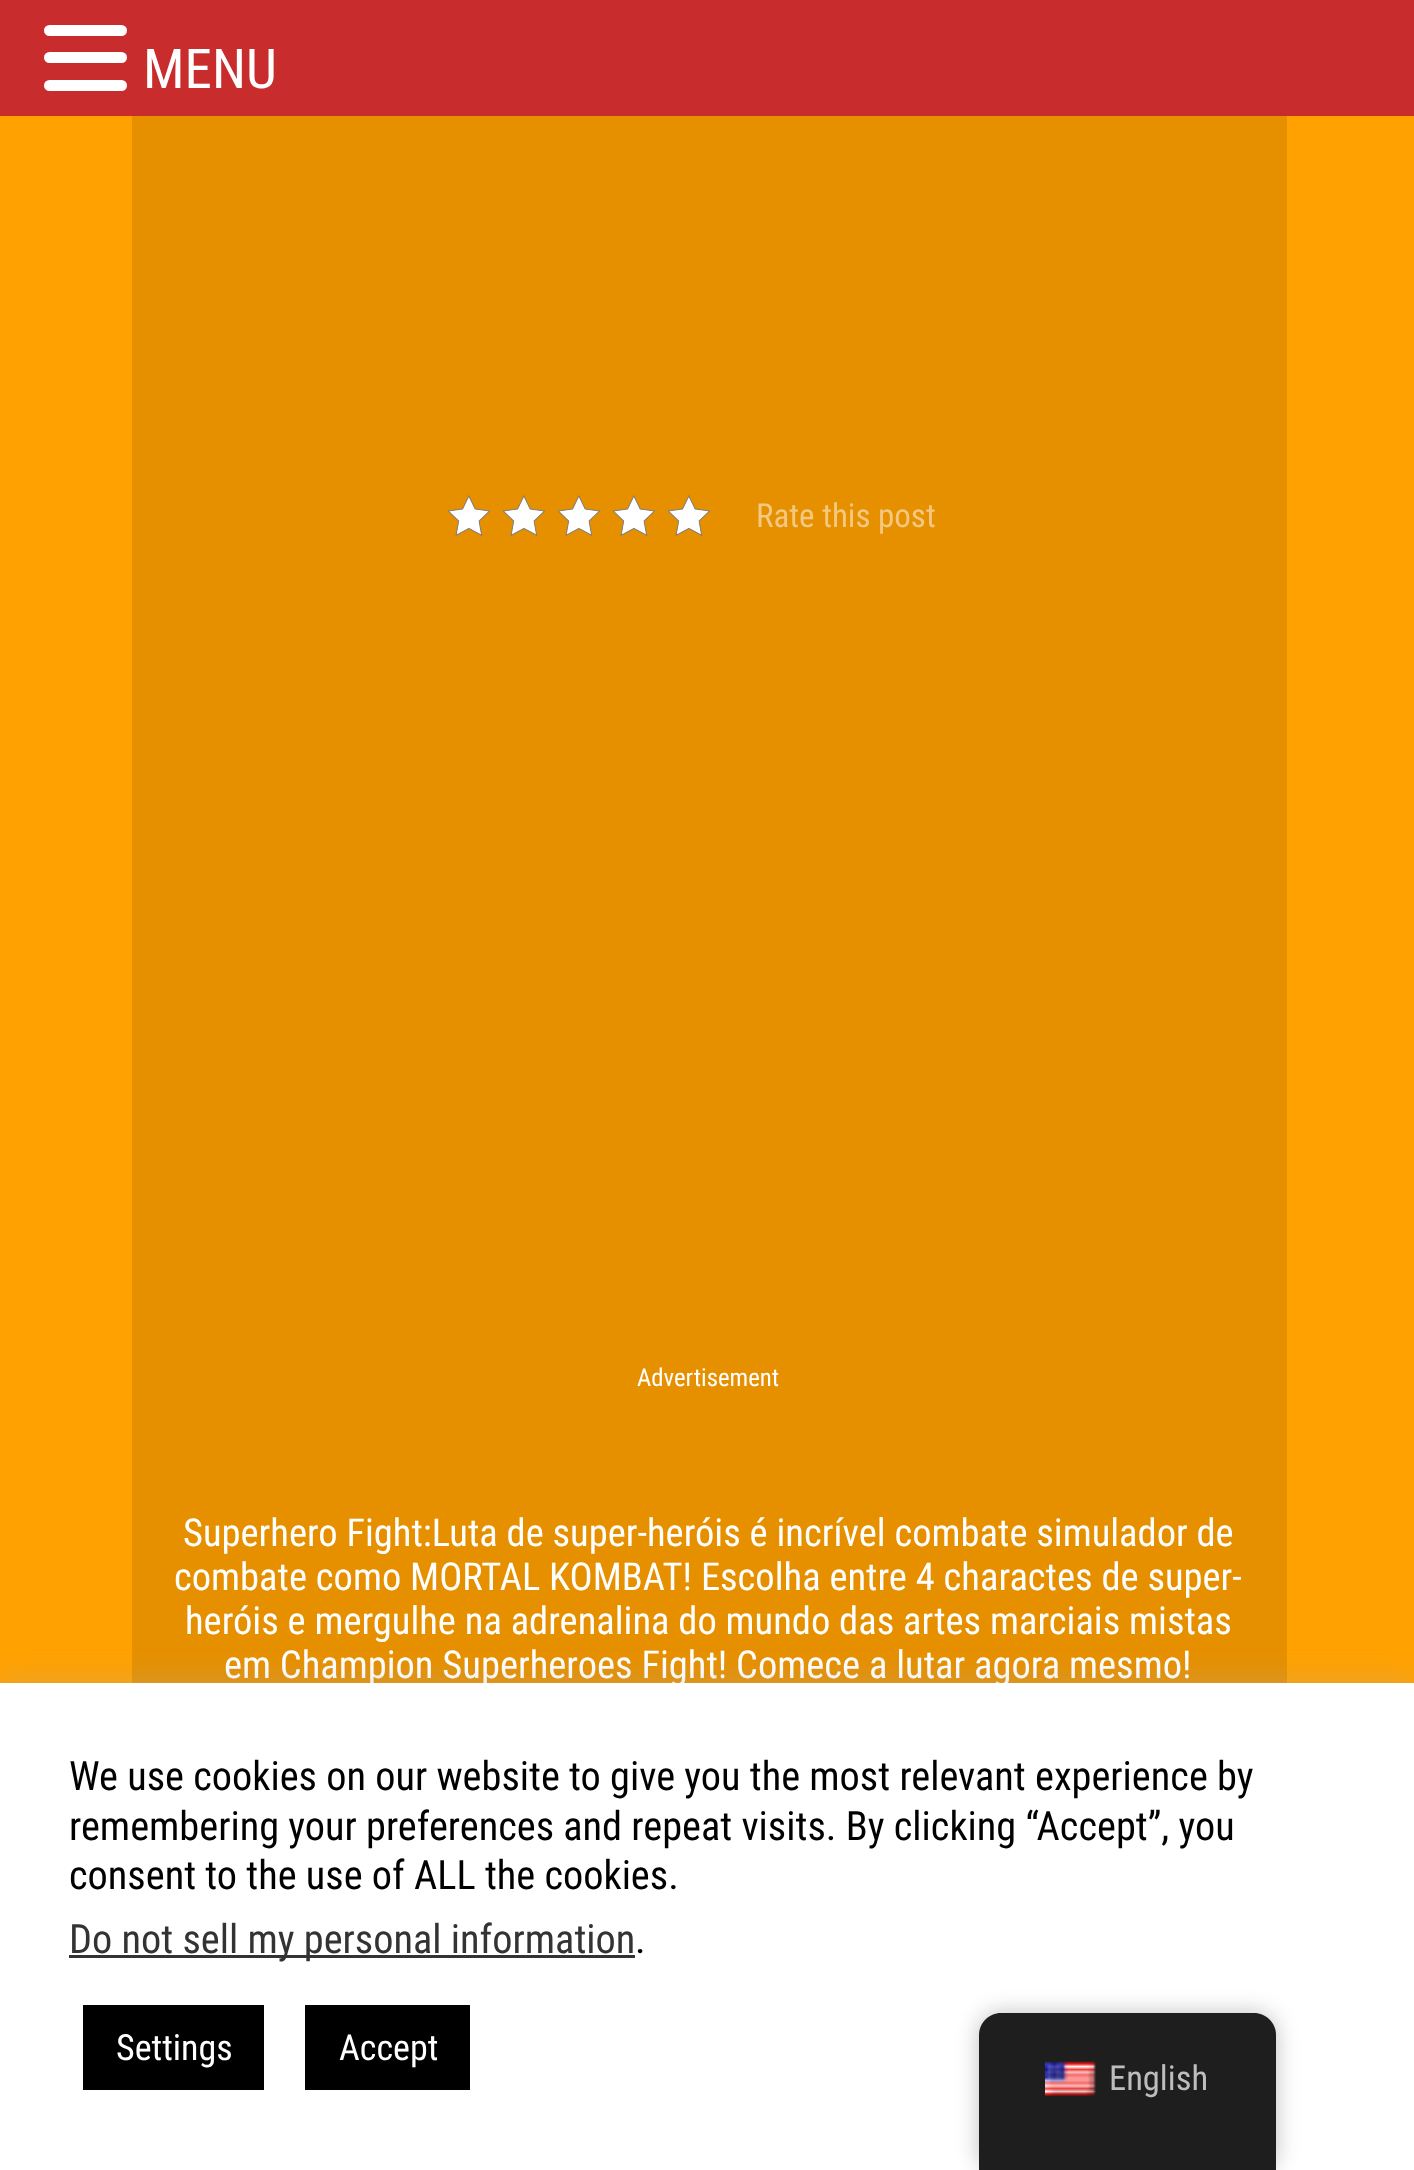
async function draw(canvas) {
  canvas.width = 1414
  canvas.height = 2170
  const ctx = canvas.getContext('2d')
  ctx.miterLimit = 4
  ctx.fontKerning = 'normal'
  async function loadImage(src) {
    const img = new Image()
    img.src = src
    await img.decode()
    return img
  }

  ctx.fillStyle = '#ffa100'
  ctx.fillRect(0, 0, 1414, 2170)
  ctx.fillStyle = '#c92c2c'
  ctx.fillRect(0, 0, 1414, 116)
  ctx.fillStyle = '#fff'
  ctx.beginPath()
  ctx.roundRect(44, 25, 83, 11, 5.5)
  ctx.fill()
  ctx.beginPath()
  ctx.roundRect(44, 52, 83, 11, 5.5)
  ctx.fill()
  ctx.beginPath()
  ctx.roundRect(44, 80, 83, 11, 5.5)
  ctx.fill()
  ctx.font = '55px Roboto Condensed'
  ctx.fillText('MENU', 143, 88)
  ctx.fillStyle = '#e69000'
  ctx.fillRect(132, 116, 1155, 1567)
  ctx.drawImage(await loadImage('image0.png'), 448, 495, 42, 41)
  ctx.drawImage(await loadImage('image0.png'), 503, 495, 42, 41)
  ctx.drawImage(await loadImage('image0.png'), 558, 495, 42, 41)
  ctx.drawImage(await loadImage('image0.png'), 613, 495, 42, 41)
  ctx.drawImage(await loadImage('image0.png'), 668, 495, 42, 41)
  ctx.font = '33px Roboto Condensed'
  ctx.fillStyle = '#f3c880'
  ctx.fillText('Rate this post', 756, 527)
  ctx.font = '24.75px Roboto Condensed'
  ctx.fillStyle = '#fff'
  ctx.fillText('Advertisement', 637, 1386)
  ctx.font = '38.5px Roboto Condensed'
  ctx.fillText('Superhero Fight:Luta de super-heróis é incrível combate simulador de', 183, 1546)
  ctx.fillText('combate como MORTAL KOMBAT! Escolha entre 4 charactes de super-', 174, 1590)
  ctx.fillText('heróis e mergulhe na adrenalina do mundo das artes marciais mistas', 185, 1634)
  ctx.fillText('em Champion Superheroes Fight! Comece a lutar agora mesmo!', 224, 1678)
  ctx.fillStyle = '#acabab4d'
  ctx.filter = 'blur(14px)'
  ctx.beginPath()
  ctx.rect(0, 1680, 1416, 490)
  ctx.fill()
  ctx.filter = 'none'
  ctx.fillStyle = '#fff'
  ctx.fillRect(0, 1683, 1414, 487)
  ctx.font = '40.3px Roboto Condensed'
  ctx.fillStyle = '#000'
  ctx.fillText('We use cookies on our website to give you the most relevant experience by', 69, 1790)
  ctx.fillText('remembering your preferences and repeat visits. By clicking “Accept”, you', 69, 1840)
  ctx.fillText('consent to the use of ALL the cookies.', 69, 1889)
  ctx.fillStyle = '#333'
  ctx.fillRect(69, 1955, 566, 3)
  ctx.fillText('Do not sell my personal information', 69, 1953)
  ctx.fillStyle = '#000'
  ctx.fillText('.', 635, 1953)
  ctx.fillRect(83, 2005, 181, 85)
  ctx.font = '36px Roboto Condensed'
  ctx.fillStyle = '#fff'
  ctx.fillText('Settings', 116, 2060)
  ctx.fillStyle = '#000'
  ctx.fillRect(305, 2005, 165, 85)
  ctx.fillStyle = '#fff'
  ctx.fillText('Accept', 339, 2060)
  ctx.fillStyle = '#00000040'
  ctx.filter = 'blur(11px)'
  ctx.beginPath()
  ctx.roundRect(979, 2013, 297, 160, 22)
  ctx.fill()
  ctx.filter = 'none'
  ctx.fillStyle = '#1e1e1e'
  ctx.beginPath()
  ctx.moveTo(1001, 2013)
  ctx.lineTo(1254, 2013)
  ctx.bezierCurveTo(1266, 2013, 1276, 2023, 1276, 2035)
  ctx.lineTo(1276, 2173)
  ctx.lineTo(979, 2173)
  ctx.lineTo(979, 2035)
  ctx.bezierCurveTo(979, 2023, 989, 2013, 1001, 2013)
  ctx.closePath()
  ctx.fill()
  ctx.drawImage(await loadImage('image1.png'), 1045, 2061, 51, 35)
  ctx.font = '34.5px Roboto Condensed'
  ctx.fillStyle = '#bdbdbd'
  ctx.fillText('English', 1109, 2090)
}

draw(document.querySelector('canvas'))
